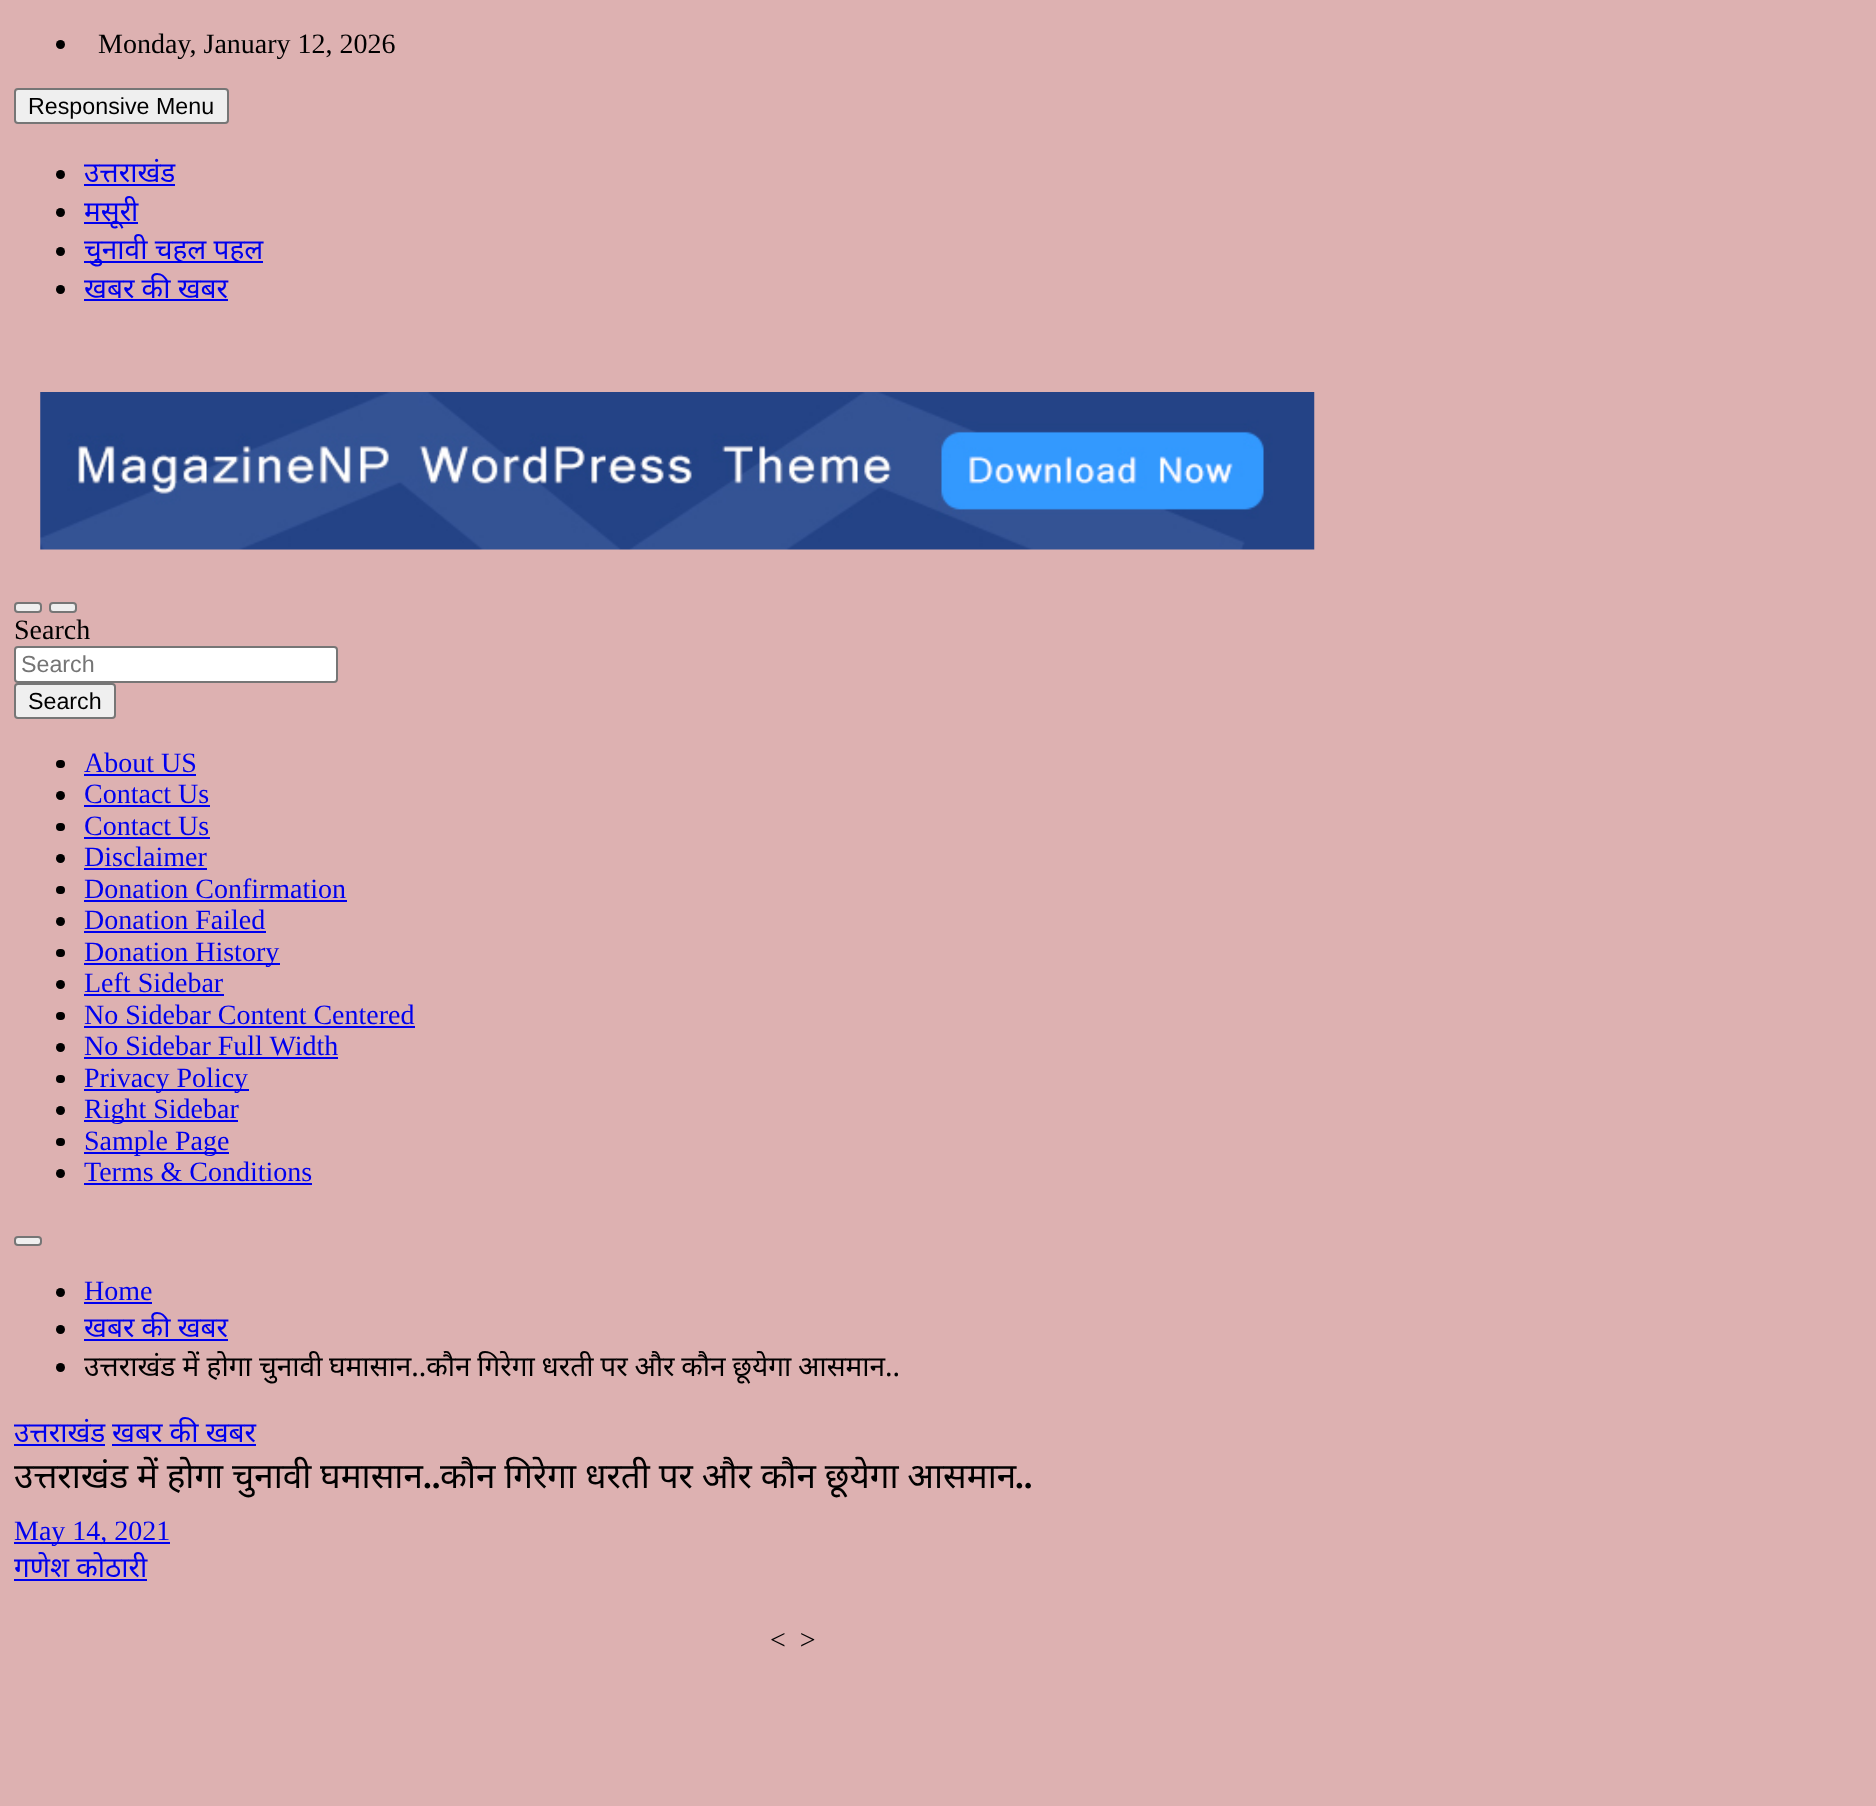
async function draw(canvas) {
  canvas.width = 1876
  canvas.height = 1806
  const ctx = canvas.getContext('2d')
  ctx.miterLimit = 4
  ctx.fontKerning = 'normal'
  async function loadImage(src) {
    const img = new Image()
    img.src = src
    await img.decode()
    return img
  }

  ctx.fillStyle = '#ddb1b1'
  ctx.fillRect(0, 0, 1876, 1806)
  ctx.fillStyle = '#000'
  ctx.beginPath()
  ctx.arc(60.5, 44.5, 4.5, 0, 2 * Math.PI)
  ctx.fill()
  ctx.font = '28px Liberation Serif'
  ctx.fillText('Monday, January 12, 2026', 98, 53)
  ctx.fillStyle = '#efefef'
  ctx.beginPath()
  ctx.roundRect(15, 89, 213, 34, 3)
  ctx.fill()
  ctx.strokeStyle = '#767676'
  ctx.lineWidth = 2
  ctx.stroke()
  ctx.font = '23.25px Liberation Sans'
  ctx.fillStyle = '#000'
  ctx.fillText('Responsive Menu', 28, 114)
  ctx.beginPath()
  ctx.arc(60.5, 174.5, 4.5, 0, 2 * Math.PI)
  ctx.fill()
  ctx.font = '28px Noto Sans'
  ctx.fillStyle = '#00e'
  ctx.fillText('उत्तराखंड', 84, 182)
  ctx.fillRect(84, 184, 91, 2)
  ctx.fillStyle = '#000'
  ctx.beginPath()
  ctx.arc(60.5, 212.5, 4.5, 0, 2 * Math.PI)
  ctx.fill()
  ctx.fillStyle = '#00e'
  ctx.fillRect(84, 222, 54, 2)
  ctx.fillText('मसूरी', 84, 221)
  ctx.fillStyle = '#000'
  ctx.beginPath()
  ctx.arc(60.5, 251.5, 4.5, 0, 2 * Math.PI)
  ctx.fill()
  ctx.fillStyle = '#00e'
  ctx.fillRect(84, 261, 179, 2)
  ctx.fillText('चुनावी चहल पहल', 84, 259)
  ctx.fillStyle = '#000'
  ctx.beginPath()
  ctx.arc(60.5, 289.5, 4.5, 0, 2 * Math.PI)
  ctx.fill()
  ctx.fillStyle = '#00e'
  ctx.fillText('खबर की खबर', 84, 298)
  ctx.fillRect(84, 299, 144, 2)
  ctx.drawImage(await loadImage('image0.png'), 40, 392, 1275, 158)
  ctx.fillStyle = '#efefef'
  ctx.beginPath()
  ctx.roundRect(15, 603, 26, 9, 3)
  ctx.fill()
  ctx.stroke()
  ctx.beginPath()
  ctx.roundRect(50, 603, 26, 9, 3)
  ctx.fill()
  ctx.stroke()
  ctx.font = '28px Liberation Serif'
  ctx.fillStyle = '#000'
  ctx.fillText('Search', 14, 639)
  ctx.fillStyle = '#fff'
  ctx.beginPath()
  ctx.roundRect(15, 647, 322, 35, 3)
  ctx.fill()
  ctx.stroke()
  ctx.font = '23.25px Liberation Sans'
  ctx.fillStyle = '#757575'
  ctx.fillText('Search', 21, 672)
  ctx.fillStyle = '#efefef'
  ctx.beginPath()
  ctx.roundRect(15, 684, 100, 34, 3)
  ctx.fill()
  ctx.stroke()
  ctx.fillStyle = '#000'
  ctx.fillText('Search', 28, 709)
  ctx.beginPath()
  ctx.roundRect(56, 760, 9, 8, 4)
  ctx.fill()
  ctx.font = '28px Liberation Serif'
  ctx.fillStyle = '#00e'
  ctx.fillText('About US', 84, 772)
  ctx.fillRect(84, 774, 112, 2)
  ctx.fillStyle = '#000'
  ctx.beginPath()
  ctx.arc(60.5, 795.5, 4.5, 0, 2 * Math.PI)
  ctx.fill()
  ctx.fillStyle = '#00e'
  ctx.fillText('Contact Us', 84, 803)
  ctx.fillRect(84, 805, 126, 2)
  ctx.fillStyle = '#000'
  ctx.beginPath()
  ctx.roundRect(56, 823, 9, 8, 4)
  ctx.fill()
  ctx.fillStyle = '#00e'
  ctx.fillText('Contact Us', 84, 835)
  ctx.fillRect(84, 837, 126, 2)
  ctx.fillStyle = '#000'
  ctx.beginPath()
  ctx.arc(60.5, 858.5, 4.5, 0, 2 * Math.PI)
  ctx.fill()
  ctx.fillStyle = '#00e'
  ctx.fillText('Disclaimer', 84, 866)
  ctx.fillRect(84, 868, 123, 2)
  ctx.fillStyle = '#000'
  ctx.beginPath()
  ctx.roundRect(56, 886, 9, 8, 4)
  ctx.fill()
  ctx.fillStyle = '#00e'
  ctx.fillText('Donation Confirmation', 84, 898)
  ctx.fillRect(84, 900, 263, 2)
  ctx.fillStyle = '#000'
  ctx.beginPath()
  ctx.arc(60.5, 921.5, 4.5, 0, 2 * Math.PI)
  ctx.fill()
  ctx.fillStyle = '#00e'
  ctx.fillText('Donation Failed', 84, 929)
  ctx.fillRect(84, 931, 182, 2)
  ctx.fillStyle = '#000'
  ctx.beginPath()
  ctx.roundRect(56, 949, 9, 8, 4)
  ctx.fill()
  ctx.fillStyle = '#00e'
  ctx.fillRect(84, 963, 196, 2)
  ctx.fillText('Donation History', 84, 961)
  ctx.fillStyle = '#000'
  ctx.beginPath()
  ctx.arc(60.5, 984.5, 4.5, 0, 2 * Math.PI)
  ctx.fill()
  ctx.fillStyle = '#00e'
  ctx.fillText('Left Sidebar', 84, 992)
  ctx.fillRect(84, 994, 140, 2)
  ctx.fillStyle = '#000'
  ctx.beginPath()
  ctx.roundRect(56, 1012, 9, 8, 4)
  ctx.fill()
  ctx.fillStyle = '#00e'
  ctx.fillText('No Sidebar Content Centered', 84, 1024)
  ctx.fillRect(84, 1026, 331, 2)
  ctx.fillStyle = '#000'
  ctx.beginPath()
  ctx.arc(60.5, 1047.5, 4.5, 0, 2 * Math.PI)
  ctx.fill()
  ctx.fillStyle = '#00e'
  ctx.fillText('No Sidebar Full Width', 84, 1055)
  ctx.fillRect(84, 1057, 254, 2)
  ctx.fillStyle = '#000'
  ctx.beginPath()
  ctx.roundRect(56, 1075, 9, 8, 4)
  ctx.fill()
  ctx.fillStyle = '#00e'
  ctx.fillRect(84, 1089, 165, 2)
  ctx.fillText('Privacy Policy', 84, 1087)
  ctx.fillStyle = '#000'
  ctx.beginPath()
  ctx.arc(60.5, 1110.5, 4.5, 0, 2 * Math.PI)
  ctx.fill()
  ctx.fillStyle = '#00e'
  ctx.fillRect(84, 1120, 154, 2)
  ctx.fillText('Right Sidebar', 84, 1118)
  ctx.fillStyle = '#000'
  ctx.beginPath()
  ctx.roundRect(56, 1138, 9, 8, 4)
  ctx.fill()
  ctx.fillStyle = '#00e'
  ctx.fillRect(84, 1152, 145, 2)
  ctx.fillText('Sample Page', 84, 1150)
  ctx.fillStyle = '#000'
  ctx.beginPath()
  ctx.arc(60.5, 1173.5, 4.5, 0, 2 * Math.PI)
  ctx.fill()
  ctx.fillStyle = '#00e'
  ctx.fillText('Terms & Conditions', 84, 1181)
  ctx.fillRect(84, 1183, 228, 2)
  ctx.fillStyle = '#efefef'
  ctx.beginPath()
  ctx.roundRect(15, 1237, 26, 8, 3)
  ctx.fill()
  ctx.stroke()
  ctx.fillStyle = '#000'
  ctx.beginPath()
  ctx.arc(60.5, 1292.5, 4.5, 0, 2 * Math.PI)
  ctx.fill()
  ctx.fillStyle = '#00e'
  ctx.fillText('Home', 84, 1300)
  ctx.fillRect(84, 1302, 68, 2)
  ctx.fillStyle = '#000'
  ctx.beginPath()
  ctx.arc(60.5, 1329.5, 4.5, 0, 2 * Math.PI)
  ctx.fill()
  ctx.font = '28px Noto Sans'
  ctx.fillStyle = '#00e'
  ctx.fillText('खबर की खबर', 84, 1337)
  ctx.fillRect(84, 1339, 144, 2)
  ctx.fillStyle = '#000'
  ctx.beginPath()
  ctx.arc(60.5, 1367.5, 4.5, 0, 2 * Math.PI)
  ctx.fill()
  ctx.fillText('उत्तराखंड में होगा चुनावी', 84, 1376)
  ctx.wordSpacing = '-0.5px'
  ctx.fillText('घमासान..कौन गिरेगा धरती पर और कौन छूयेगा आसमान..', 329, 1376)
  ctx.wordSpacing = '0px'
  ctx.fillStyle = '#00e'
  ctx.fillText('उत्तराखंड', 14, 1442)
  ctx.fillRect(14, 1444, 91, 2)
  ctx.fillText('खबर की खबर', 112, 1442)
  ctx.fillRect(112, 1444, 144, 2)
  ctx.wordSpacing = '-0.25px'
  ctx.font = '35px Noto Sans'
  ctx.fillStyle = '#000'
  ctx.fillText('उत्तराखंड में होगा चुनावी', 14, 1488)
  ctx.wordSpacing = '0px'
  ctx.fillText('घमासान', 320, 1488)
  ctx.font = 'bold 35px Liberation Serif'
  ctx.fillText('..', 423, 1488)
  ctx.wordSpacing = '-0.25px'
  ctx.font = '35px Noto Sans'
  ctx.fillText('कौन गिरेगा धरती पर और कौन छूयेगा आसमान', 440, 1488)
  ctx.wordSpacing = '0px'
  ctx.font = 'bold 35px Liberation Serif'
  ctx.fillText('..', 1015, 1488)
  ctx.fillStyle = '#00e'
  ctx.fillRect(14, 1542, 156, 2)
  ctx.font = '28px Liberation Serif'
  ctx.fillText('May 14, 2021', 14, 1540)
  ctx.font = '28px Noto Sans'
  ctx.fillText('गणेश कोठारी', 14, 1577)
  ctx.fillRect(14, 1579, 133, 2)
  ctx.font = '28px Liberation Serif'
  ctx.fillStyle = '#000'
  ctx.fillText('<  >', 770, 1649)
}

draw(document.querySelector('canvas'))
